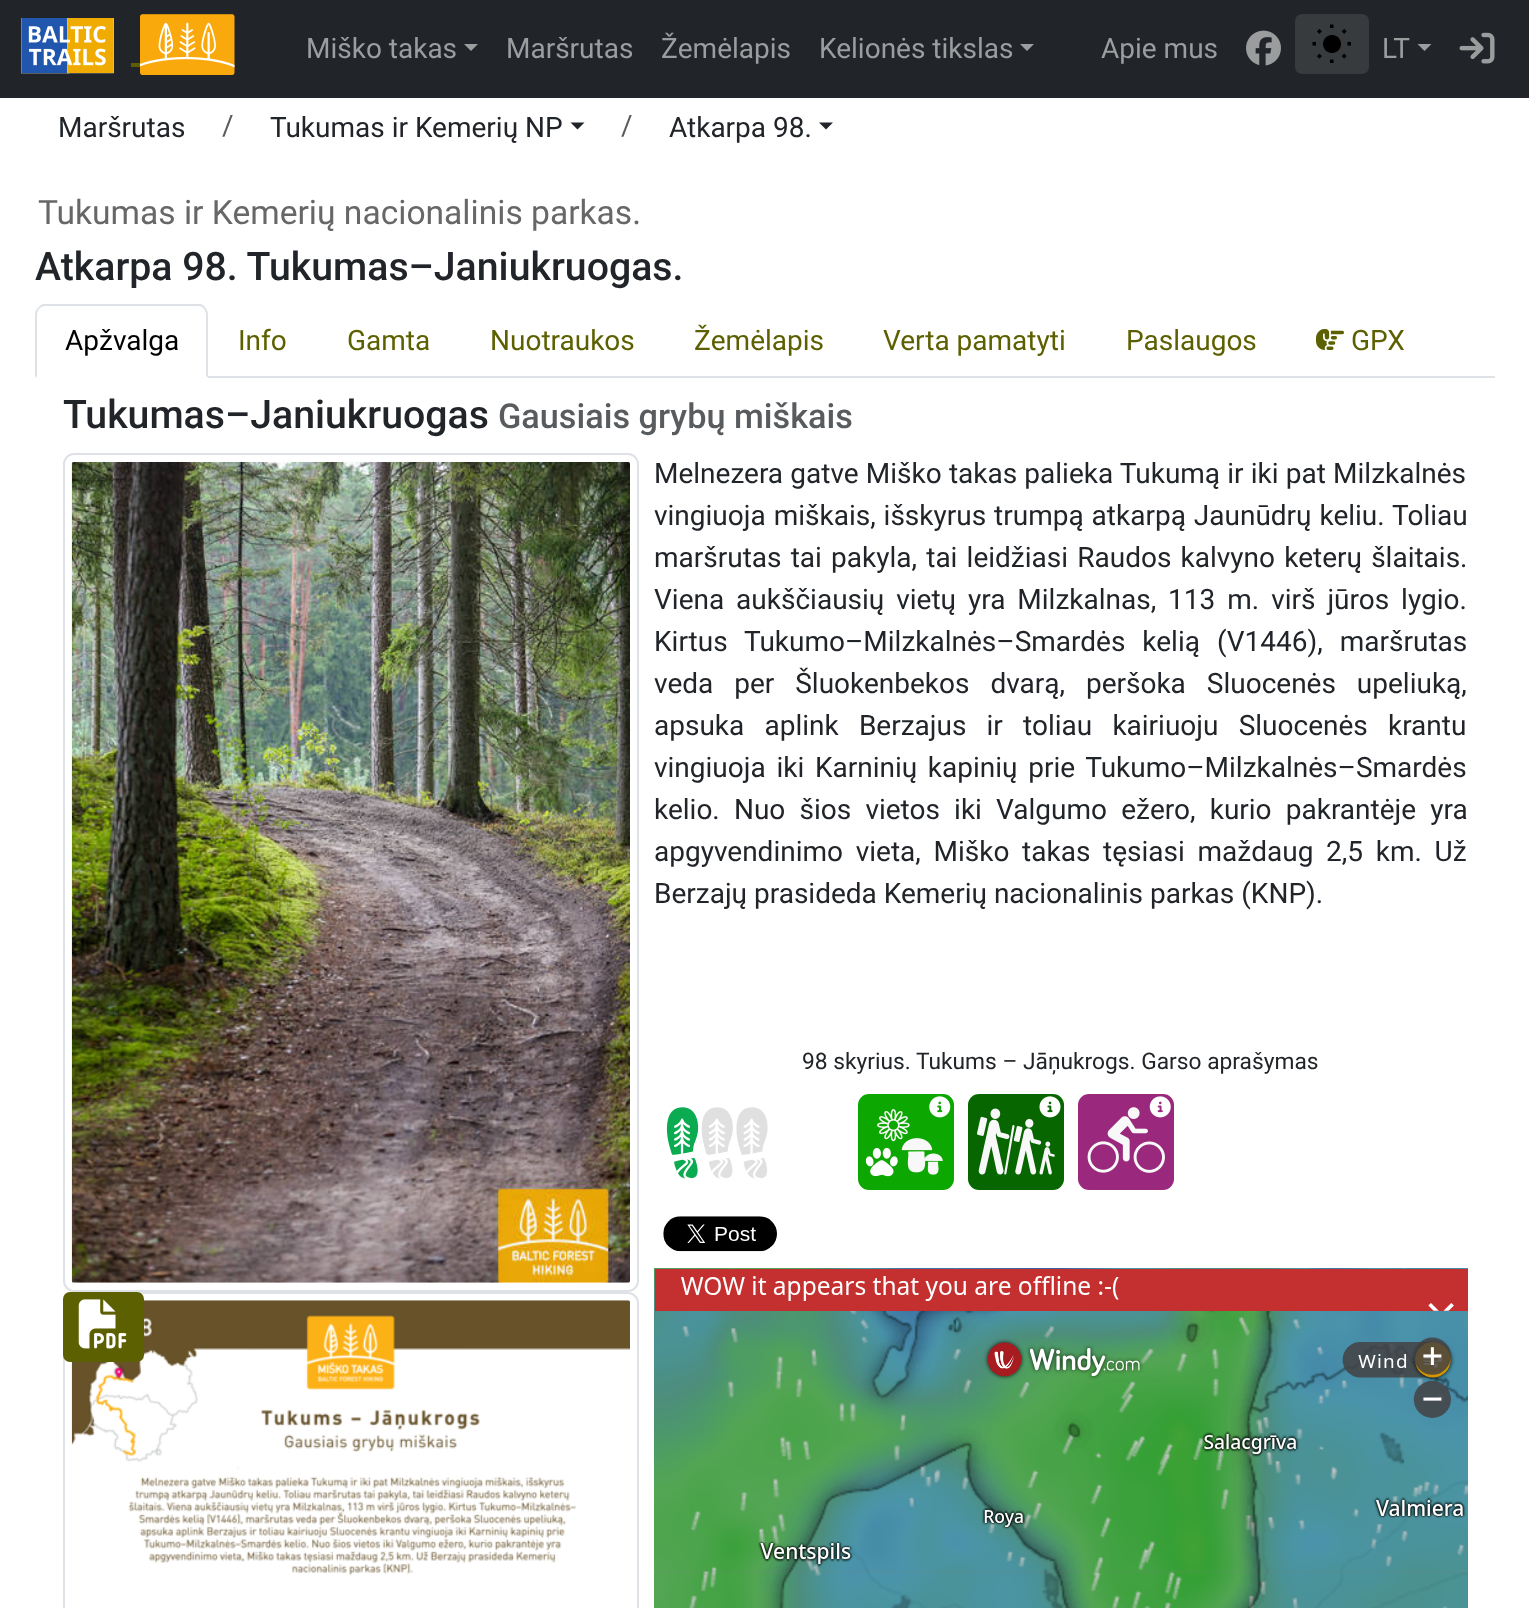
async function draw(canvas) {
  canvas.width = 1529
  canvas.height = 1608
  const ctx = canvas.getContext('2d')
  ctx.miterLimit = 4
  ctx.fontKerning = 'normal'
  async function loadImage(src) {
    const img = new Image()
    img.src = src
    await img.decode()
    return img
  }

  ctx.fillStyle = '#fff'
  ctx.fillRect(0, 0, 1529, 1608)
  ctx.fillStyle = '#212529'
  ctx.fillRect(0, 0, 1529, 98)
  ctx.drawImage(await loadImage('image0.png'), 21, 18, 93, 56)
  ctx.fillStyle = '#5d6000'
  ctx.fillRect(131, 63, 9, 4)
  ctx.drawImage(await loadImage('image1.png'), 140, 14, 95, 61)
  ctx.font = '28px Roboto'
  ctx.fillStyle = '#9b9d9f'
  ctx.fillText('Miško takas', 306, 58)
  ctx.beginPath()
  ctx.moveTo(464, 44)
  ctx.lineTo(478, 44)
  ctx.lineTo(471, 51)
  ctx.closePath()
  ctx.fill()
  ctx.fillText('Maršrutas', 506, 58)
  ctx.fillText('Žemėlapis', 661, 58)
  ctx.fillText('Kelionės tikslas', 819, 58)
  ctx.beginPath()
  ctx.moveTo(1020, 44)
  ctx.lineTo(1034, 44)
  ctx.lineTo(1027, 51)
  ctx.closePath()
  ctx.fill()
  ctx.fillText('Apie mus', 1101, 58)
  ctx.drawImage(await loadImage('image2.png'), 1246, 30, 35, 36)
  ctx.fillStyle = '#373b3e'
  ctx.beginPath()
  ctx.roundRect(1295, 14, 74, 60, 7)
  ctx.fill()
  ctx.drawImage(await loadImage('image3.png'), 1312, 24, 39, 39)
  ctx.fillStyle = '#9b9d9f'
  ctx.fillText('LT', 1382, 58)
  ctx.beginPath()
  ctx.moveTo(1417.5, 44)
  ctx.lineTo(1431.5, 44)
  ctx.lineTo(1424.5, 51)
  ctx.closePath()
  ctx.fill()
  ctx.drawImage(await loadImage('image4.png'), 1459, 32, 36, 32)
  ctx.fillStyle = '#212529'
  ctx.fillText('Maršrutas', 58, 137)
  ctx.fillStyle = '#595c5f'
  ctx.fillText('/', 222, 135)
  ctx.fillStyle = '#212529'
  ctx.fillText('Tukumas ir Kemerių NP', 270, 137)
  ctx.beginPath()
  ctx.moveTo(570.5, 122.5)
  ctx.lineTo(584.5, 122.5)
  ctx.lineTo(577.5, 129.5)
  ctx.closePath()
  ctx.fill()
  ctx.fillStyle = '#595c5f'
  ctx.fillText('/', 621, 135)
  ctx.fillStyle = '#212529'
  ctx.fillText('Atkarpa 98.', 669, 137)
  ctx.beginPath()
  ctx.moveTo(819, 122.5)
  ctx.lineTo(833, 122.5)
  ctx.lineTo(826, 129.5)
  ctx.closePath()
  ctx.fill()
  ctx.font = '33.6px Roboto'
  ctx.fillStyle = '#676767'
  ctx.fillText('Tukumas ir Kemerių nacionalinis parkas.', 38, 224)
  ctx.font = '500 39.25px Roboto'
  ctx.fillStyle = '#212529'
  ctx.fillText('Atkarpa 98. Tukumas–Janiukruogas.', 35, 280)
  ctx.fillStyle = '#dee2e6'
  ctx.fillRect(208, 376, 1287, 2)
  ctx.beginPath()
  ctx.moveTo(46, 306)
  ctx.bezierCurveTo(43, 306, 41, 307, 39, 309)
  ctx.lineTo(38, 308)
  ctx.bezierCurveTo(39, 306, 41, 305, 43, 304)
  ctx.lineTo(201, 304)
  ctx.bezierCurveTo(203, 305, 204, 306, 205, 307)
  ctx.lineTo(204, 309)
  ctx.bezierCurveTo(203, 307, 201, 306, 198, 306)
  ctx.closePath()
  ctx.fill()
  ctx.beginPath()
  ctx.moveTo(205, 307)
  ctx.bezierCurveTo(207, 309, 208, 312, 208, 315)
  ctx.lineTo(208, 378)
  ctx.lineTo(206, 376)
  ctx.lineTo(206, 315)
  ctx.bezierCurveTo(206, 313, 205, 310, 204, 309)
  ctx.closePath()
  ctx.fill()
  ctx.fillStyle = '#fff'
  ctx.beginPath()
  ctx.moveTo(208, 378)
  ctx.lineTo(206, 376)
  ctx.lineTo(37, 376)
  ctx.lineTo(35, 378)
  ctx.closePath()
  ctx.fill()
  ctx.fillStyle = '#dee2e6'
  ctx.beginPath()
  ctx.moveTo(35, 378)
  ctx.lineTo(37, 376)
  ctx.lineTo(37, 315)
  ctx.bezierCurveTo(37, 313, 38, 310, 39, 309)
  ctx.lineTo(38, 308)
  ctx.bezierCurveTo(36, 309, 35, 312, 35, 315)
  ctx.closePath()
  ctx.fill()
  ctx.font = '28px Roboto'
  ctx.fillStyle = '#000'
  ctx.fillText('Apžvalga', 65, 350)
  ctx.fillStyle = '#5d6000'
  ctx.fillText('Info', 238, 350)
  ctx.fillText('Gamta', 347, 350)
  ctx.fillText('Nuotraukos', 490, 350)
  ctx.fillText('Žemėlapis', 694, 350)
  ctx.fillText('Verta pamatyti', 883, 350)
  ctx.fillText('Paslaugos', 1126, 350)
  ctx.drawImage(await loadImage('image5.png'), 1316, 329, 28, 21)
  ctx.fillText('GPX', 1351, 350)
  ctx.font = '500 39.25px Roboto'
  ctx.fillStyle = '#212529'
  ctx.fillText('Tukumas–Janiukruogas', 63, 428)
  ctx.font = '500 34.25px Roboto'
  ctx.fillStyle = '#595c5f'
  ctx.fillText('Gausiais grybų miškais', 498, 428)
  ctx.beginPath()
  ctx.roundRect(64, 454, 574, 837, 10)
  ctx.strokeStyle = '#dee2e6'
  ctx.lineWidth = 2
  ctx.stroke()
  ctx.drawImage(await loadImage('image6.png'), 71, 462, 559, 821)
  ctx.beginPath()
  ctx.roundRect(64, 1293, 574, 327, 10)
  ctx.stroke()
  ctx.drawImage(await loadImage('image8.png'), 71, 1300, 559, 276)
  ctx.fillStyle = '#5d6000'
  ctx.beginPath()
  ctx.roundRect(64, 1293, 79, 68, 6)
  ctx.fill()
  ctx.strokeStyle = '#5d6000'
  ctx.stroke()
  ctx.drawImage(await loadImage('image7.png'), 78, 1299, 49, 50)
  ctx.wordSpacing = '0.25px'
  ctx.font = '28px Roboto'
  ctx.fillStyle = '#212529'
  ctx.fillText('Melnezera gatve Miško takas palieka Tukumą ir iki pat Milzkalnės', 654, 483)
  ctx.wordSpacing = '1px'
  ctx.fillText('vingiuoja miškais, išskyrus trumpą atkarpą Jaunūdrų keliu. Toliau', 654, 525)
  ctx.wordSpacing = '2.25px'
  ctx.fillText('maršrutas tai pakyla, tai leidžiasi Raudos kalvyno keterų šlaitais.', 654, 567)
  ctx.wordSpacing = '5px'
  ctx.fillText('Viena aukščiausių vietų yra Milzkalnas, 113 m. virš jūros lygio.', 654, 609)
  ctx.wordSpacing = '10px'
  ctx.fillText('Kirtus Tukumo–Milzkalnės–Smardės kelią (V1446), maršrutas', 654, 651)
  ctx.wordSpacing = '14px'
  ctx.fillText('veda per Šluokenbekos dvarą, peršoka Sluocenės upeliuką,', 654, 693)
  ctx.wordSpacing = '13.25px'
  ctx.fillText('apsuka aplink Berzajus ir toliau kairiuoju Sluocenės krantu', 654, 735)
  ctx.wordSpacing = '3.75px'
  ctx.fillText('vingiuoja iki Karninių kapinių prie Tukumo–Milzkalnės–Smardės', 654, 777)
  ctx.wordSpacing = '7.25px'
  ctx.fillText('kelio. Nuo šios vietos iki Valgumo ežero, kurio pakrantėje yra', 654, 819)
  ctx.wordSpacing = '5.75px'
  ctx.fillText('apgyvendinimo vieta, Miško takas tęsiasi maždaug 2,5 km. Už', 654, 861)
  ctx.wordSpacing = '0px'
  ctx.fillText('Berzajų prasideda Kemerių nacionalinis parkas (KNP).', 654, 903)
  ctx.font = '22.75px Roboto'
  ctx.fillText('98 skyrius. Tukums – Jāņukrogs. Garso aprašymas', 802, 1069)
  ctx.drawImage(await loadImage('image9.png'), 666, 1107, 102, 72)
  ctx.fillStyle = '#0ca700'
  ctx.beginPath()
  ctx.roundRect(858, 1094, 96, 96, 11)
  ctx.fill()
  ctx.drawImage(await loadImage('image11.png'), 865, 1109, 78, 68)
  ctx.drawImage(await loadImage('image10.png'), 929, 1096, 22, 22)
  ctx.fillStyle = '#076600'
  ctx.beginPath()
  ctx.roundRect(968, 1094, 96, 96, 11)
  ctx.fill()
  ctx.drawImage(await loadImage('image13.png'), 977, 1108, 78, 67)
  ctx.drawImage(await loadImage('image12.png'), 1039, 1096, 22, 22)
  ctx.fillStyle = '#9a287d'
  ctx.beginPath()
  ctx.roundRect(1078, 1094, 96, 96, 11)
  ctx.fill()
  ctx.drawImage(await loadImage('image15.png'), 1087, 1107, 78, 66)
  ctx.drawImage(await loadImage('image14.png'), 1149, 1096, 22, 22)
  ctx.drawImage(await loadImage('image16.png'), 663, 1216, 114, 36)
  ctx.drawImage(await loadImage('image17.png'), 654, 1268, 814, 340)
}

draw(document.querySelector('canvas'))
